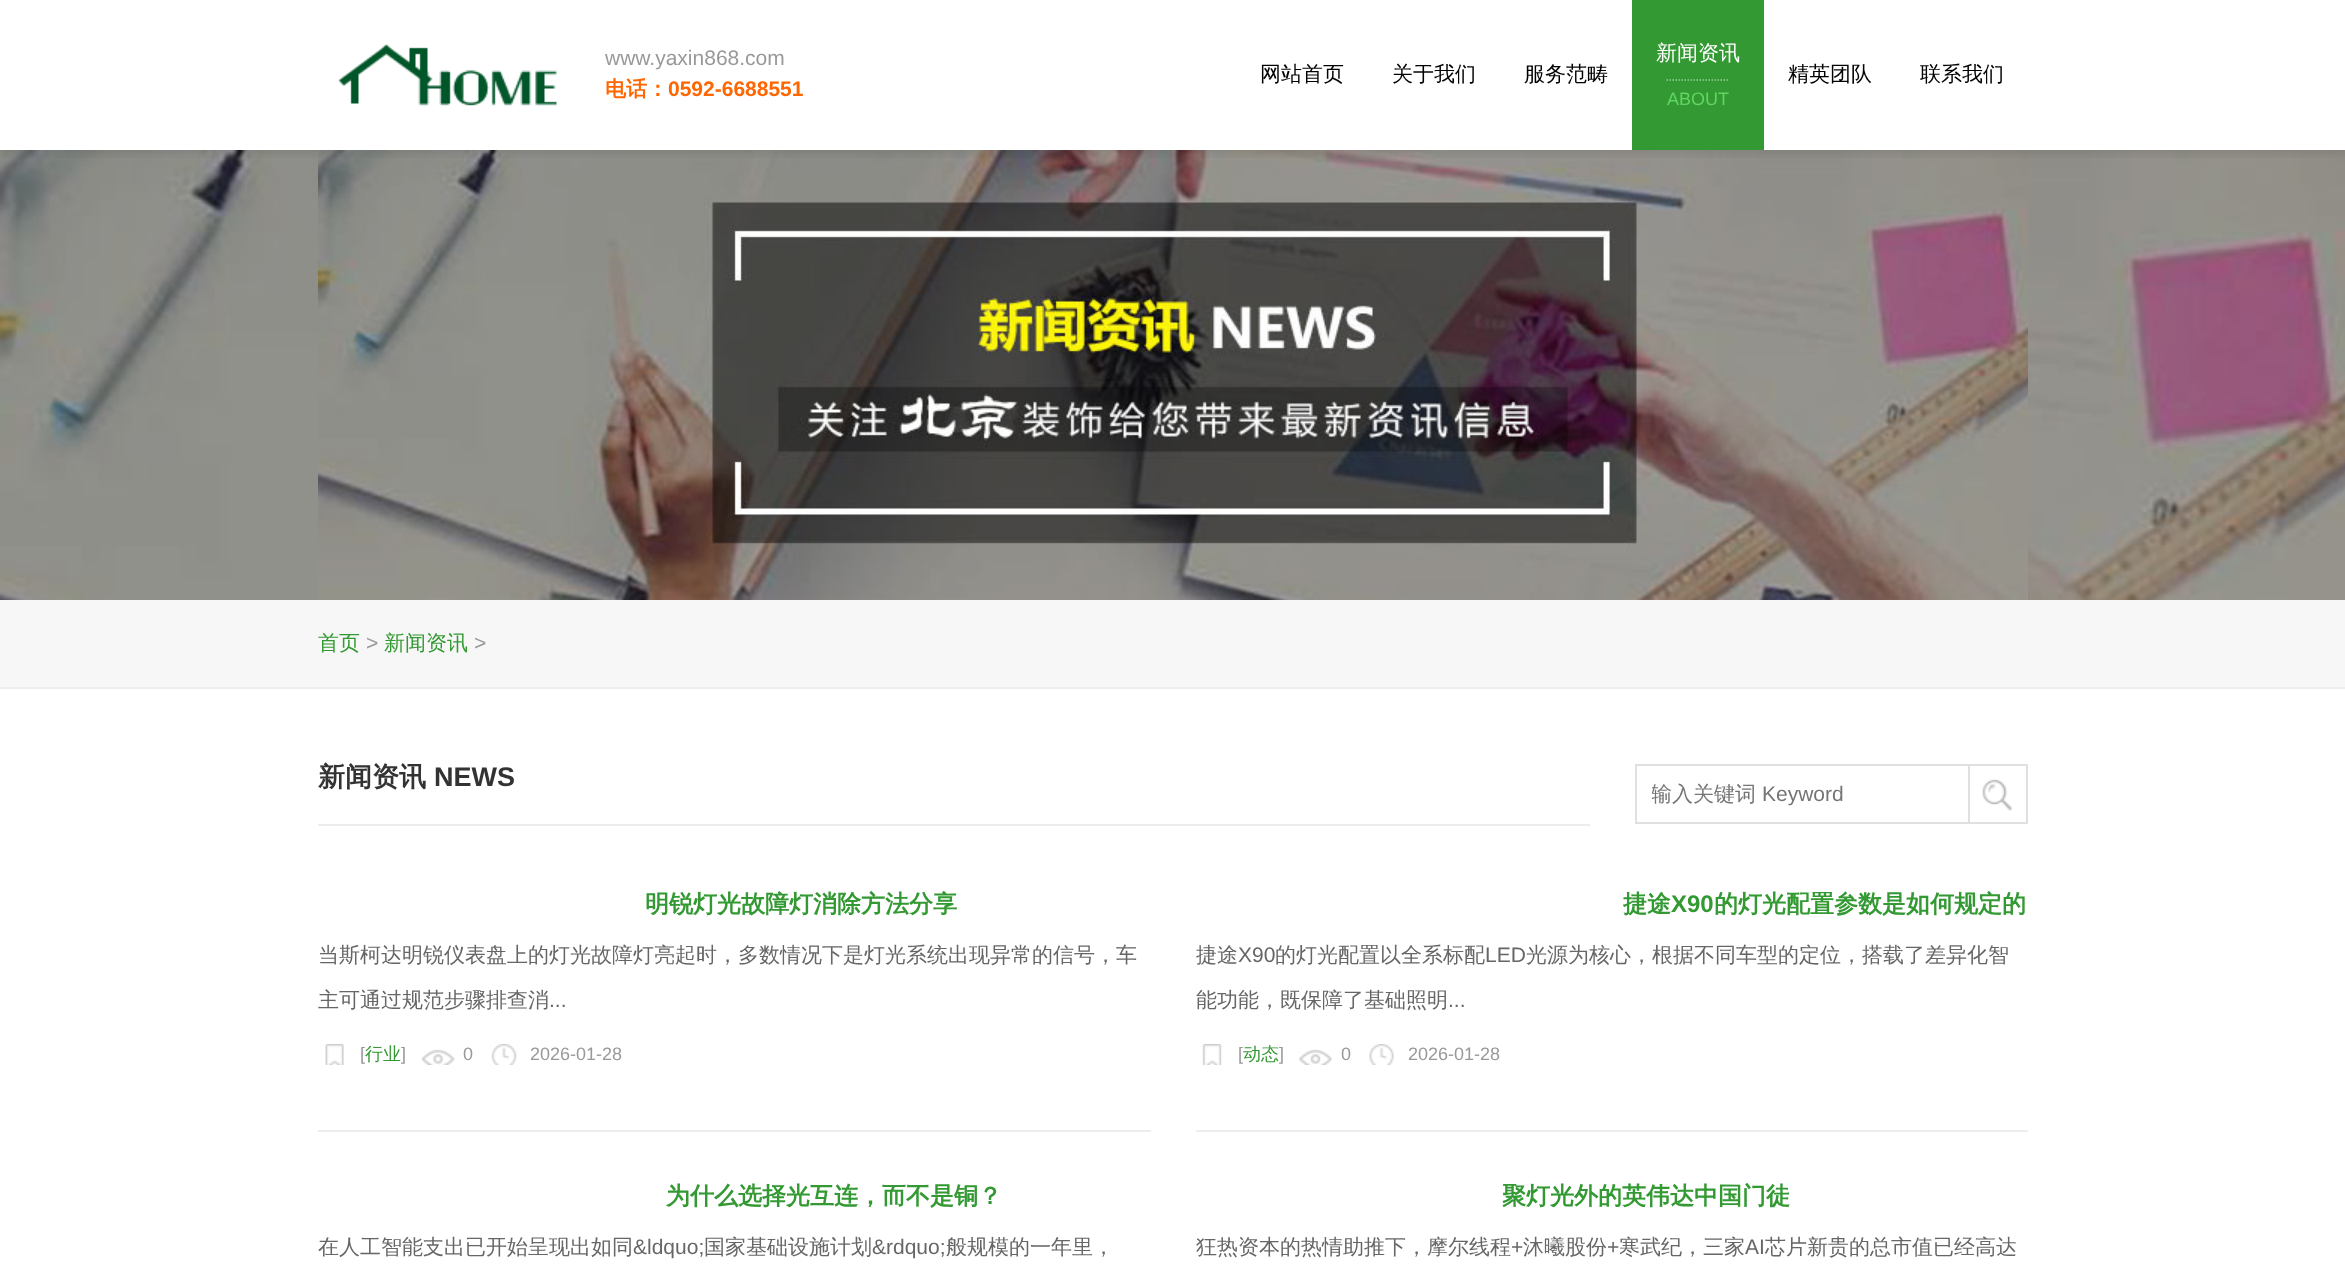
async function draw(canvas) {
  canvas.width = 2345
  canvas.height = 1282
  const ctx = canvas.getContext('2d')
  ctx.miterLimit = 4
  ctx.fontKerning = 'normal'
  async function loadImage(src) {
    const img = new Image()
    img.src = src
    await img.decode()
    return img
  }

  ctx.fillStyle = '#fff'
  ctx.fillRect(0, 0, 2345, 1282)
  ctx.drawImage(await loadImage('image1.png'), 0, 150, 2345, 450)
  ctx.drawImage(await loadImage('image2.png'), 318, 150, 1710, 450)
  ctx.save()
  ctx.beginPath()
  ctx.rect(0, 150, 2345, 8)
  ctx.clip()
  ctx.fillStyle = '#00000026'
  ctx.filter = 'blur(7.5px)'
  ctx.beginPath()
  ctx.rect(0, 0, 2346, 150)
  ctx.fill()
  ctx.filter = 'none'
  ctx.restore()
  ctx.drawImage(await loadImage('image0.png'), 338, 44, 219, 62)
  ctx.font = '21px Liberation Sans'
  ctx.fillStyle = '#999'
  ctx.fillText('www.yaxin868.com', 605, 65)
  ctx.font = 'bold 21px WenQuanYi Zen Hei'
  ctx.fillStyle = '#f60'
  ctx.fillText('电话：', 605, 96)
  ctx.font = 'bold 21px Liberation Sans'
  ctx.fillText('0592-6688551', 668, 96)
  ctx.font = '500 21px WenQuanYi Zen Hei'
  ctx.fillStyle = '#000'
  ctx.fillText('网站首页', 1260, 81)
  ctx.fillText('关于我们', 1392, 81)
  ctx.fillText('服务范畴', 1524, 81)
  ctx.fillStyle = '#393'
  ctx.fillRect(1632, 0, 132, 150)
  ctx.fillStyle = '#fff'
  ctx.fillText('新闻资讯', 1656, 60)
  ctx.beginPath()
  ctx.moveTo(1666.5, 80)
  ctx.lineTo(1729.5, 80)
  ctx.strokeStyle = '#9c9'
  ctx.lineWidth = 1.5
  ctx.setLineDash([1.5, 1.5])
  ctx.stroke()
  ctx.font = '18px Liberation Sans'
  ctx.fillStyle = '#60d560'
  ctx.fillText('ABOUT', 1667, 105)
  ctx.font = '500 21px WenQuanYi Zen Hei'
  ctx.fillStyle = '#000'
  ctx.fillText('精英团队', 1788, 81)
  ctx.fillText('联系我们', 1920, 81)
  ctx.fillStyle = '#f7f7f7'
  ctx.fillRect(0, 600, 2345, 87)
  ctx.fillStyle = '#ededed'
  ctx.fillRect(0, 687, 2345, 2)
  ctx.fillStyle = '#393'
  ctx.fillText('首页', 318, 650)
  ctx.font = '21px Liberation Sans'
  ctx.fillStyle = '#999'
  ctx.fillText('>', 366, 650)
  ctx.font = '500 21px WenQuanYi Zen Hei'
  ctx.fillStyle = '#393'
  ctx.fillText('新闻资讯', 384, 650)
  ctx.font = '21px Liberation Sans'
  ctx.fillStyle = '#999'
  ctx.fillText('>', 474, 650)
  ctx.fillStyle = '#ededed'
  ctx.fillRect(318, 824, 1272, 2)
  ctx.font = 'bold 27px WenQuanYi Zen Hei'
  ctx.fillStyle = '#333'
  ctx.fillText('新闻资讯', 318, 786)
  ctx.font = 'bold 27px Liberation Sans'
  ctx.fillText('NEWS', 434, 786)
  ctx.strokeStyle = '#e0e0e0'
  ctx.lineWidth = 2
  ctx.setLineDash([])
  ctx.strokeRect(1636, 765, 384, 58)
  ctx.save()
  ctx.beginPath()
  ctx.rect(1652, 782, 352, 27)
  ctx.clip()
  ctx.font = '500 21px WenQuanYi Zen Hei'
  ctx.fillStyle = '#757575'
  ctx.fillText('输入关键词', 1651, 801)
  ctx.restore()
  ctx.font = '21px Liberation Sans'
  ctx.fillStyle = '#757575'
  ctx.fillText('Keyword', 1762, 801)
  ctx.fillStyle = '#fff'
  ctx.fillRect(2019, 766, 2, 56)
  ctx.drawImage(await loadImage('image3.png'), 1982, 779, 30, 32)
  ctx.strokeRect(1969, 765, 58, 58)
  ctx.fillStyle = '#ededed'
  ctx.fillRect(318, 1130, 833, 2)
  ctx.font = 'bold 24px WenQuanYi Zen Hei'
  ctx.fillStyle = '#393'
  ctx.fillText('明锐灯光故障灯消除方法分享', 645, 912)
  ctx.font = '500 21px WenQuanYi Zen Hei'
  ctx.fillStyle = '#666'
  ctx.fillText('当斯柯达明锐仪表盘上的灯光故障灯亮起时，多数情况下是灯光系统出现异常的信号，车', 318, 962)
  ctx.fillText('主可通过规范步骤排查消', 318, 1007)
  ctx.font = '21px Liberation Sans'
  ctx.fillText('...', 549, 1007)
  ctx.drawImage(await loadImage('image4.png'), 325, 1044, 19, 21)
  ctx.font = '18px Liberation Sans'
  ctx.fillStyle = '#999'
  ctx.fillText('[', 360, 1060)
  ctx.font = '500 18px WenQuanYi Zen Hei'
  ctx.fillStyle = '#393'
  ctx.fillText('行业', 365, 1060)
  ctx.font = '18px Liberation Sans'
  ctx.fillStyle = '#999'
  ctx.fillText(']', 401, 1060)
  ctx.drawImage(await loadImage('image5.png'), 421, 1049, 34, 16)
  ctx.fillText('0', 463, 1060)
  ctx.drawImage(await loadImage('image6.png'), 491, 1044, 26, 21)
  ctx.fillText('2026-01-28', 530, 1060)
  ctx.fillStyle = '#ededed'
  ctx.fillRect(1196, 1130, 832, 2)
  ctx.font = 'bold 24px WenQuanYi Zen Hei'
  ctx.fillStyle = '#393'
  ctx.fillText('捷途', 1623, 912)
  ctx.font = 'bold 24px Liberation Sans'
  ctx.fillText('X90', 1671, 912)
  ctx.font = 'bold 24px WenQuanYi Zen Hei'
  ctx.fillText('的灯光配置参数是如何规定的', 1714, 912)
  ctx.font = '500 21px WenQuanYi Zen Hei'
  ctx.fillStyle = '#666'
  ctx.fillText('捷途', 1196, 962)
  ctx.font = '21px Liberation Sans'
  ctx.fillText('X90', 1238, 962)
  ctx.font = '500 21px WenQuanYi Zen Hei'
  ctx.fillText('的灯光配置以全系标配', 1275, 962)
  ctx.font = '21px Liberation Sans'
  ctx.fillText('LED', 1485, 962)
  ctx.font = '500 21px WenQuanYi Zen Hei'
  ctx.fillText('光源为核心，根据不同车型的定位，搭载了差异化智', 1526, 962)
  ctx.fillText('能功能，既保障了基础照明', 1196, 1007)
  ctx.font = '21px Liberation Sans'
  ctx.fillText('...', 1448, 1007)
  ctx.drawImage(await loadImage('image7.png'), 1202, 1044, 20, 21)
  ctx.font = '18px Liberation Sans'
  ctx.fillStyle = '#999'
  ctx.fillText('[', 1238, 1060)
  ctx.font = '500 18px WenQuanYi Zen Hei'
  ctx.fillStyle = '#393'
  ctx.fillText('动态', 1243, 1060)
  ctx.font = '18px Liberation Sans'
  ctx.fillStyle = '#999'
  ctx.fillText(']', 1279, 1060)
  ctx.drawImage(await loadImage('image8.png'), 1299, 1049, 33, 16)
  ctx.fillText('0', 1341, 1060)
  ctx.drawImage(await loadImage('image9.png'), 1369, 1044, 25, 21)
  ctx.fillText('2026-01-28', 1408, 1060)
  ctx.font = 'bold 24px WenQuanYi Zen Hei'
  ctx.fillStyle = '#393'
  ctx.fillText('为什么选择光互连，而不是铜？', 666, 1204)
  ctx.font = '500 21px WenQuanYi Zen Hei'
  ctx.fillStyle = '#666'
  ctx.fillText('在人工智能支出已开始呈现出如同', 318, 1254)
  ctx.font = '21px Liberation Sans'
  ctx.fillText('&ldquo;', 633, 1254)
  ctx.font = '500 21px WenQuanYi Zen Hei'
  ctx.fillText('国家基础设施计划', 704, 1254)
  ctx.font = '21px Liberation Sans'
  ctx.fillText('&rdquo;', 872, 1254)
  ctx.font = '500 21px WenQuanYi Zen Hei'
  ctx.fillText('般规模的一年里，', 946, 1254)
  ctx.font = 'bold 24px WenQuanYi Zen Hei'
  ctx.fillStyle = '#393'
  ctx.fillText('聚灯光外的英伟达中国门徒', 1502, 1204)
  ctx.font = '500 21px WenQuanYi Zen Hei'
  ctx.fillStyle = '#666'
  ctx.fillText('狂热资本的热情助推下，摩尔线程', 1196, 1254)
  ctx.font = '21px Liberation Sans'
  ctx.fillText('+', 1511, 1254)
  ctx.font = '500 21px WenQuanYi Zen Hei'
  ctx.fillText('沐曦股份', 1523, 1254)
  ctx.font = '21px Liberation Sans'
  ctx.fillText('+', 1607, 1254)
  ctx.font = '500 21px WenQuanYi Zen Hei'
  ctx.fillText('寒武纪，三家', 1619, 1254)
  ctx.font = '21px Liberation Sans'
  ctx.fillText('AI', 1745, 1254)
  ctx.font = '500 21px WenQuanYi Zen Hei'
  ctx.fillText('芯片新贵的总市值已经高达', 1765, 1254)
}

draw(document.querySelector('canvas'))
